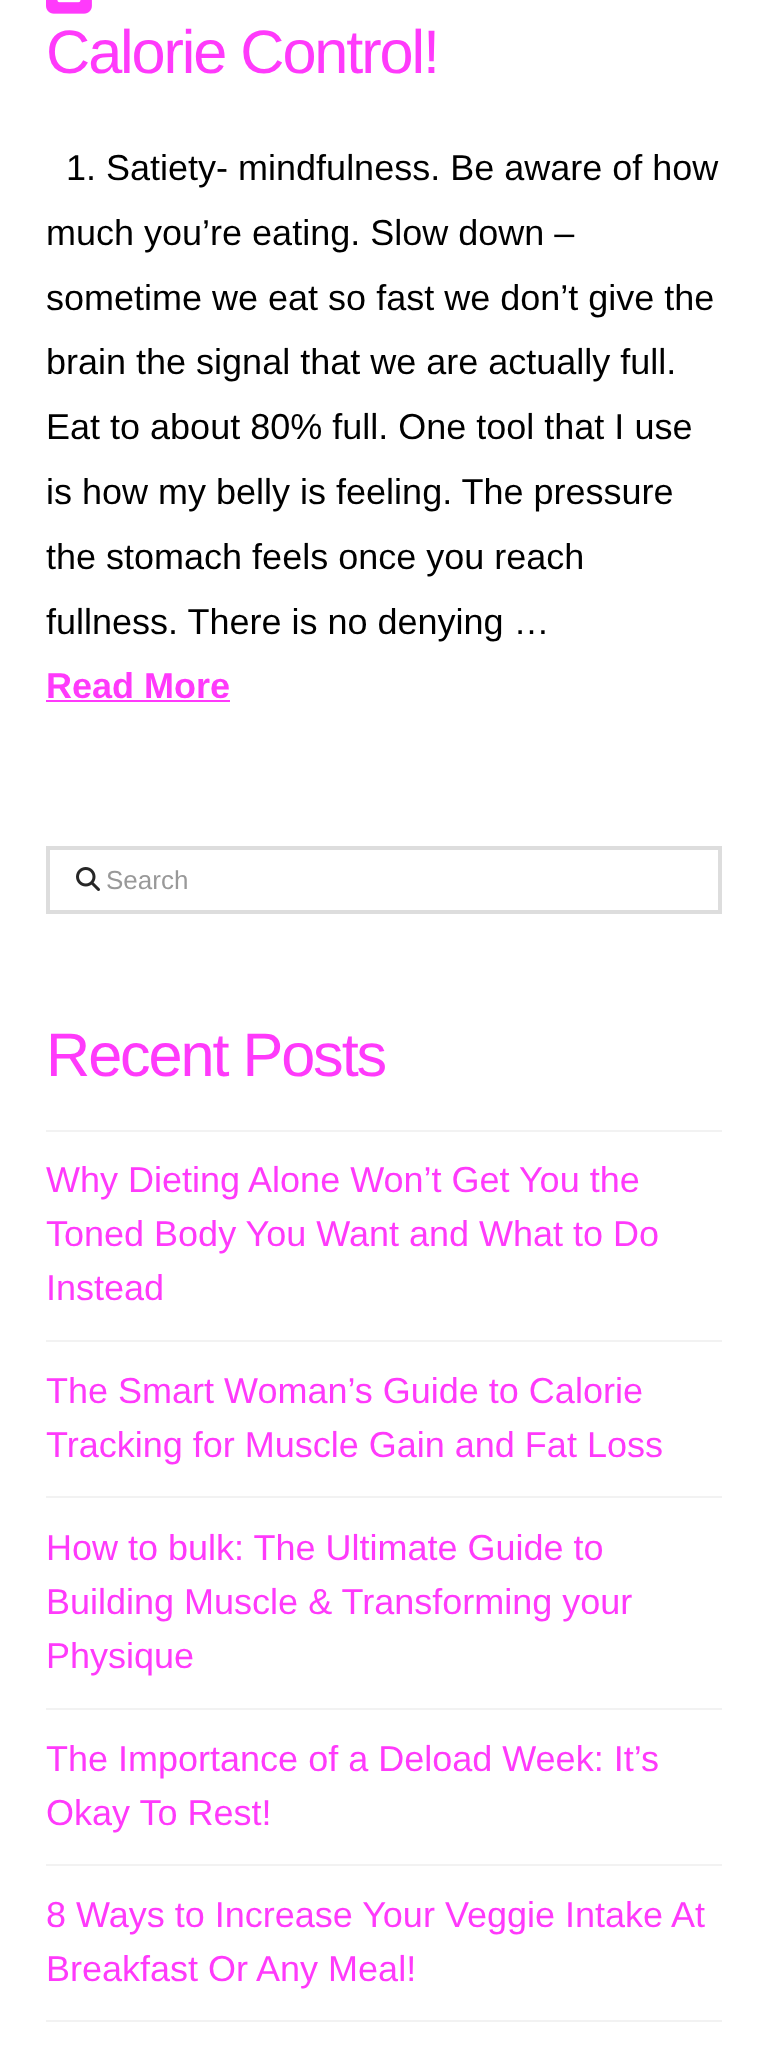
async function draw(canvas) {
  canvas.width = 767
  canvas.height = 2053
  const ctx = canvas.getContext('2d')
  ctx.miterLimit = 4
  ctx.fontKerning = 'normal'
  async function loadImage(src) {
    const img = new Image()
    img.src = src
    await img.decode()
    return img
  }

  ctx.fillStyle = '#fff'
  ctx.fillRect(0, 0, 767, 2053)
  ctx.drawImage(await loadImage('image0.png'), 46, 0, 46, 14)
  ctx.letterSpacing = '-2.1px'
  ctx.font = '61.25px Liberation Sans'
  ctx.fillStyle = '#ff3afb'
  ctx.fillText('Calorie Control!', 46, 73)
  ctx.letterSpacing = '0px'
  ctx.font = '36px Liberation Sans'
  ctx.fillStyle = '#000'
  ctx.fillText('1. Satiety- mindfulness. Be aware of how', 66, 180)
  ctx.fillText('much you’re eating. Slow down –', 46, 245)
  ctx.fillText('sometime we eat so fast we don’t give the', 46, 310)
  ctx.fillText('brain the signal that we are actually full.', 46, 374)
  ctx.fillText('Eat to about 80% full. One tool that I use', 46, 439)
  ctx.fillText('is how my belly is feeling. The pressure', 46, 504)
  ctx.fillText('the stomach feels once you reach', 46, 569)
  ctx.fillText('fullness. There is no denying …', 46, 634)
  ctx.font = 'bold 36px Liberation Sans'
  ctx.fillStyle = '#ff3afb'
  ctx.fillText('Read More', 46, 698)
  ctx.fillRect(46, 700, 184, 2)
  ctx.strokeStyle = '#ddd'
  ctx.lineWidth = 4
  ctx.strokeRect(48, 848, 672, 64)
  ctx.drawImage(await loadImage('image1.png'), 76, 867, 24, 24)
  ctx.font = '26px Liberation Sans'
  ctx.fillStyle = '#999'
  ctx.fillText('Search', 106, 889)
  ctx.letterSpacing = '-2.1px'
  ctx.font = '61.25px Liberation Sans'
  ctx.fillStyle = '#ff3afb'
  ctx.fillText('Recent Posts', 46, 1076)
  ctx.fillStyle = '#f2f2f2'
  ctx.fillRect(46, 1130, 676, 2)
  ctx.fillRect(46, 1340, 676, 2)
  ctx.letterSpacing = '0px'
  ctx.font = '36px Liberation Sans'
  ctx.fillStyle = '#ff3afb'
  ctx.fillText('Why Dieting Alone Won’t Get You the', 46, 1192)
  ctx.fillText('Toned Body You Want and What to Do', 46, 1246)
  ctx.fillText('Instead', 46, 1300)
  ctx.fillStyle = '#f2f2f2'
  ctx.fillRect(46, 1496, 676, 2)
  ctx.fillStyle = '#ff3afb'
  ctx.fillText('The Smart Woman’s Guide to Calorie', 46, 1403)
  ctx.fillText('Tracking for Muscle Gain and Fat Loss', 46, 1457)
  ctx.fillStyle = '#f2f2f2'
  ctx.fillRect(46, 1708, 676, 2)
  ctx.fillStyle = '#ff3afb'
  ctx.fillText('How to bulk: The Ultimate Guide to', 46, 1560)
  ctx.fillText('Building Muscle & Transforming your', 46, 1614)
  ctx.fillText('Physique', 46, 1668)
  ctx.fillStyle = '#f2f2f2'
  ctx.fillRect(46, 1864, 676, 2)
  ctx.fillStyle = '#ff3afb'
  ctx.fillText('The Importance of a Deload Week: It’s', 46, 1771)
  ctx.fillText('Okay To Rest!', 46, 1825)
  ctx.fillStyle = '#f2f2f2'
  ctx.fillRect(46, 2020, 676, 2)
  ctx.fillStyle = '#ff3afb'
  ctx.fillText('8 Ways to Increase Your Veggie Intake At', 46, 1927)
  ctx.fillText('Breakfast Or Any Meal!', 46, 1981)
}

draw(document.querySelector('canvas'))
